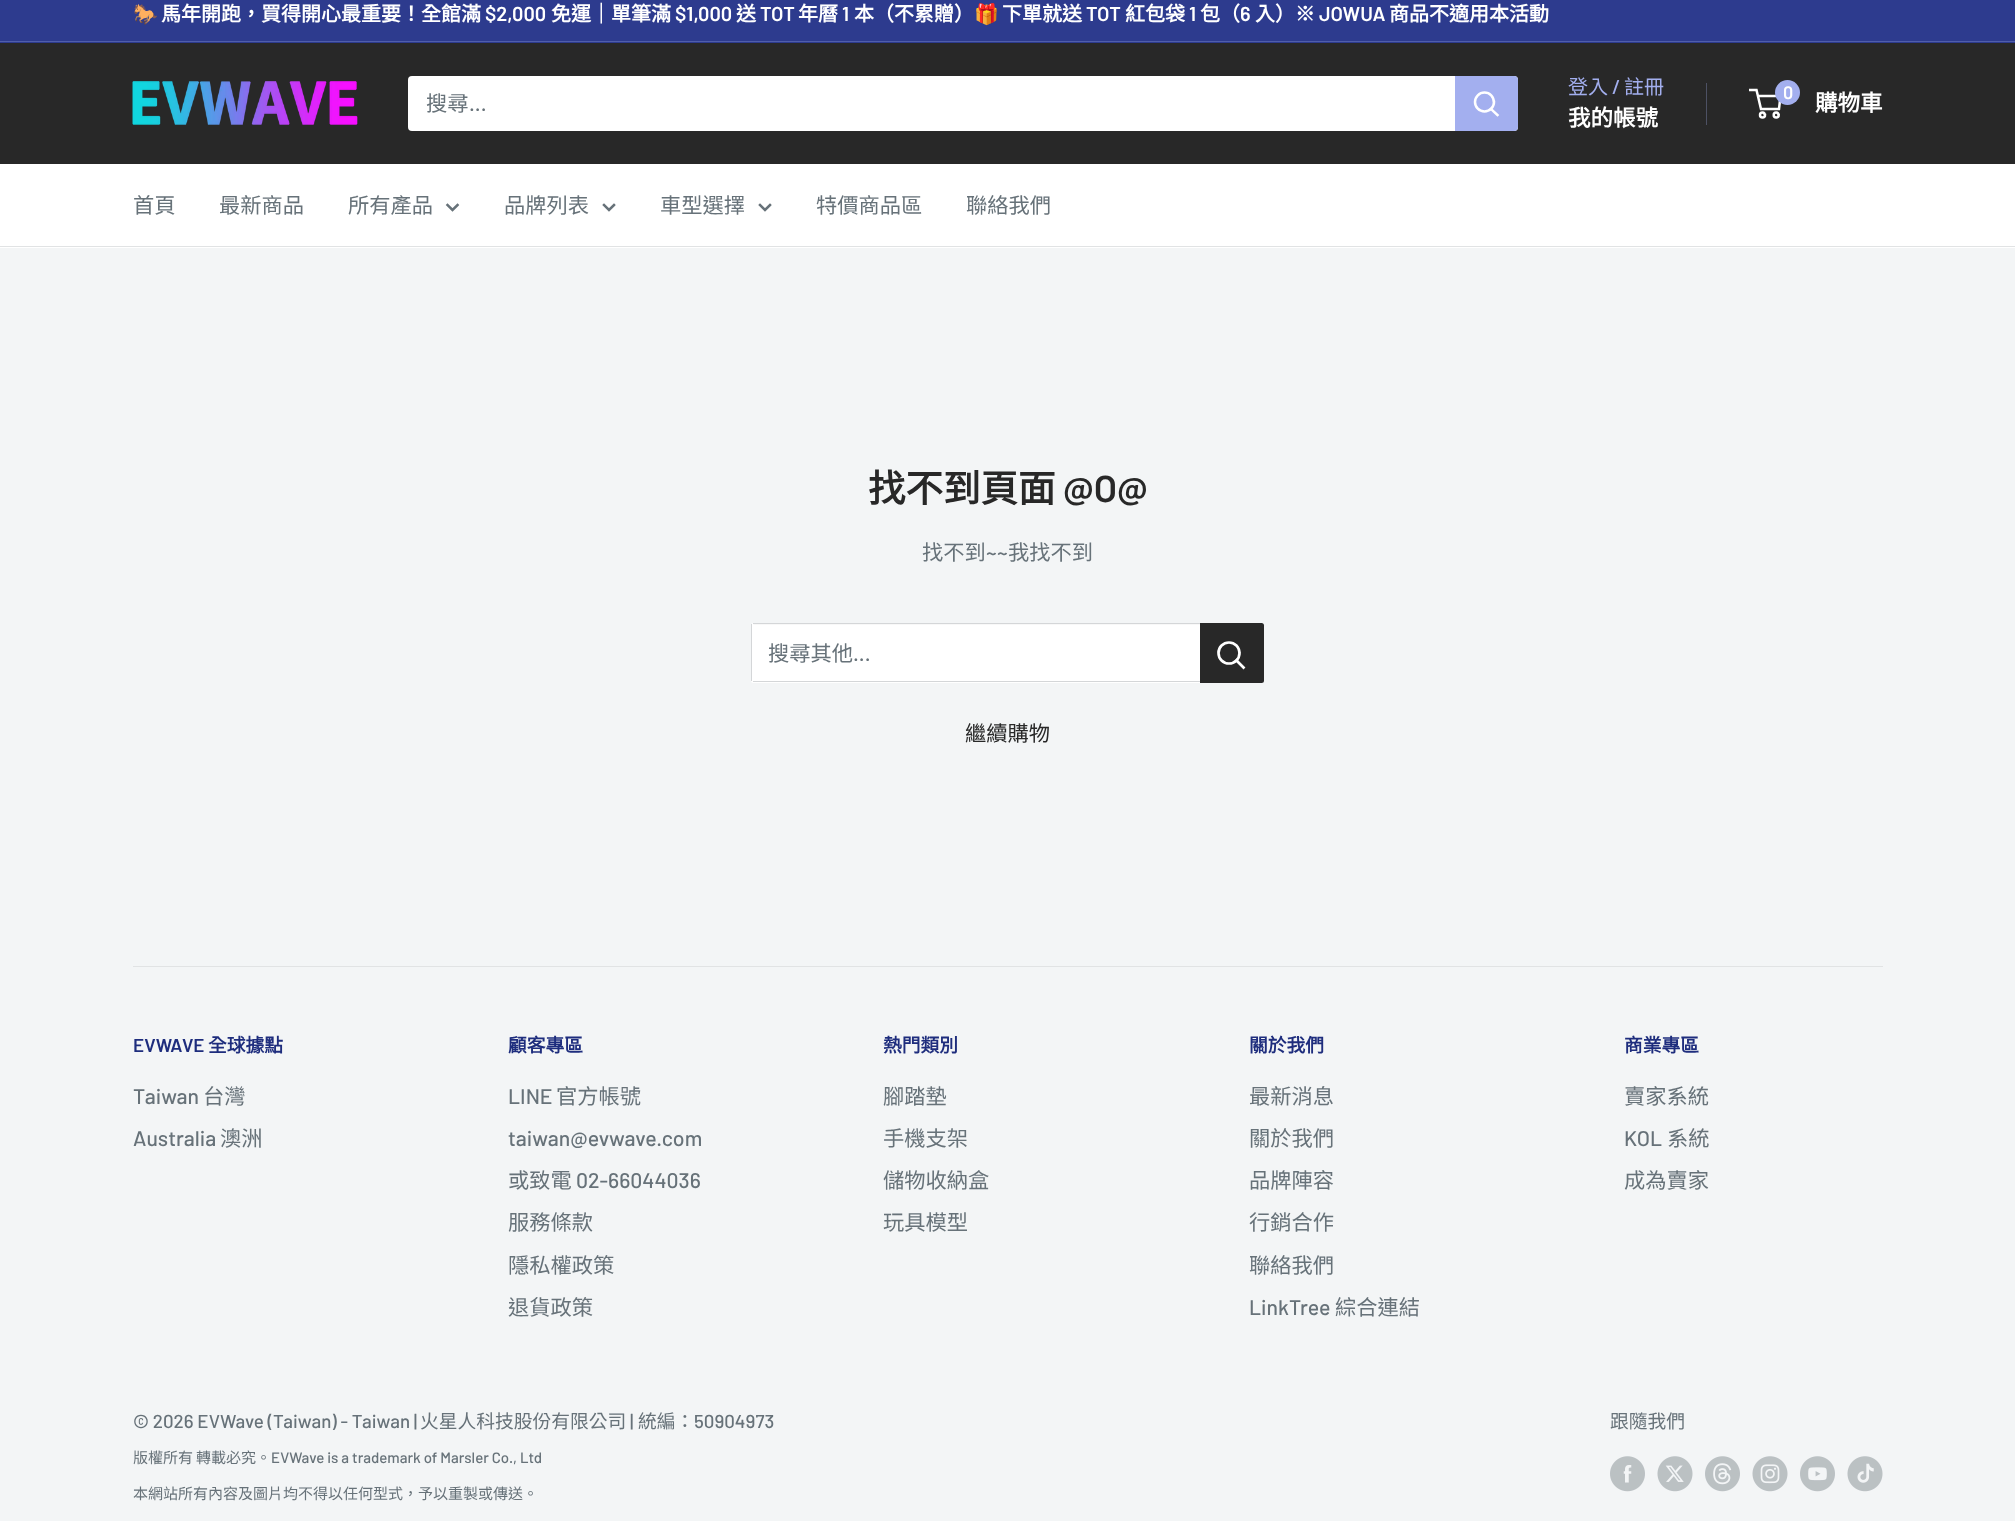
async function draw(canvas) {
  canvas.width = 2015
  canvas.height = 1521
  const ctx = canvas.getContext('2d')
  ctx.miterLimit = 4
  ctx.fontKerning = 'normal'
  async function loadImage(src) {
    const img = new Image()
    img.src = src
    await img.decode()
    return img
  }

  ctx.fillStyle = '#f3f5f6'
  ctx.fillRect(0, 0, 2015, 1521)
  ctx.fillStyle = '#2d3b8e'
  ctx.fillRect(0, 0, 2015, 43)
  ctx.fillStyle = '#505eab'
  ctx.fillRect(0, 41, 2015, 1)
  ctx.font = 'bold 20px Noto Color Emoji'
  ctx.fillStyle = '#fff'
  ctx.fillText('🐎', 133, 21)
  ctx.font = 'bold 20px Noto Sans CJK TC'
  ctx.fillText('馬年開跑，買得開心最重要！全館滿', 161, 21)
  ctx.font = '600 20px Barlow'
  ctx.fillText('$2,000', 485, 21)
  ctx.font = 'bold 20px Noto Sans CJK TC'
  ctx.fillText('免運｜單筆滿', 551, 21)
  ctx.font = '600 20px Barlow'
  ctx.fillText('$1,000', 675, 21)
  ctx.font = 'bold 20px Noto Sans CJK TC'
  ctx.fillText('送', 736, 21)
  ctx.font = '600 20px Barlow'
  ctx.fillText('TOT', 760, 21)
  ctx.font = 'bold 20px Noto Sans CJK TC'
  ctx.fillText('年曆', 798, 21)
  ctx.font = '600 20px Barlow'
  ctx.fillText('1', 842, 21)
  ctx.font = 'bold 20px Noto Sans CJK TC'
  ctx.fillText('本（不累贈）', 854, 21)
  ctx.font = 'bold 20px Noto Color Emoji'
  ctx.fillText('🎁', 974, 21)
  ctx.font = 'bold 20px Noto Sans CJK TC'
  ctx.fillText('下單就送', 1002, 21)
  ctx.font = '600 20px Barlow'
  ctx.fillText('TOT', 1086, 21)
  ctx.font = 'bold 20px Noto Sans CJK TC'
  ctx.fillText('紅包袋', 1125, 21)
  ctx.font = '600 20px Barlow'
  ctx.fillText('1', 1189, 21)
  ctx.font = 'bold 20px Noto Sans CJK TC'
  ctx.fillText('包（', 1200, 21)
  ctx.font = '600 20px Barlow'
  ctx.fillText('6', 1240, 21)
  ctx.font = 'bold 20px Noto Sans CJK TC'
  ctx.fillText('入）※', 1255, 21)
  ctx.font = '600 20px Barlow'
  ctx.fillText('JOWUA', 1319, 21)
  ctx.font = 'bold 20px Noto Sans CJK TC'
  ctx.fillText('商品不適用本活動', 1389, 21)
  ctx.fillStyle = '#282828'
  ctx.fillRect(0, 43, 2015, 121)
  ctx.drawImage(await loadImage('image0.png'), 132, 81, 226, 44)
  ctx.fillStyle = '#fff'
  ctx.beginPath()
  ctx.roundRect(408, 76, 1110, 55, 4)
  ctx.fill()
  ctx.font = '21.25px Noto Sans CJK TC'
  ctx.fillStyle = '#677279'
  ctx.fillText('搜尋', 426, 111)
  ctx.font = '500 21.25px Barlow'
  ctx.fillText('...', 469, 111)
  ctx.fillStyle = '#a3afef'
  ctx.beginPath()
  ctx.roundRect(1455, 76, 63, 55, [0, 4, 4, 0])
  ctx.fill()
  ctx.beginPath()
  ctx.moveTo(1497.5, 115)
  ctx.lineTo(1491, 109)
  ctx.strokeStyle = '#fff'
  ctx.lineWidth = 2.5
  ctx.lineCap = 'square'
  ctx.stroke()
  ctx.beginPath()
  ctx.arc(1484.5, 102, 9.5, 0, 2 * Math.PI)
  ctx.stroke()
  ctx.font = '20px Noto Sans CJK TC'
  ctx.fillText('登入', 1568, 94)
  ctx.font = '500 20px Barlow'
  ctx.fillText('/', 1612, 94)
  ctx.font = '20px Noto Sans CJK TC'
  ctx.fillText('註冊', 1624, 94)
  ctx.fillStyle = '#4d5164'
  ctx.fillRect(1706, 83, 1, 42)
  ctx.font = 'bold 22.5px Noto Sans CJK TC'
  ctx.fillStyle = '#fff'
  ctx.fillText('我的帳號', 1568, 126)
  ctx.beginPath()
  ctx.arc(1762.5, 115, 2.5, 0, 2 * Math.PI)
  ctx.stroke()
  ctx.beginPath()
  ctx.arc(1776.2, 115, 2.5, 0, 2 * Math.PI)
  ctx.stroke()
  ctx.beginPath()
  ctx.moveTo(1758, 96)
  ctx.lineTo(1780.5, 96)
  ctx.lineTo(1779, 109)
  ctx.lineTo(1761, 109)
  ctx.lineTo(1756.5, 90)
  ctx.lineTo(1749, 90)
  ctx.lineCap = 'butt'
  ctx.stroke()
  ctx.fillStyle = '#a3afef'
  ctx.beginPath()
  ctx.arc(1787.5, 92.5, 12.5, 0, 2 * Math.PI)
  ctx.fill()
  ctx.font = '600 18px Barlow'
  ctx.fillStyle = '#fff'
  ctx.fillText('0', 1783, 99)
  ctx.font = 'bold 22.5px Noto Sans CJK TC'
  ctx.fillText('購物車', 1815, 111)
  ctx.fillRect(0, 164, 2015, 84)
  ctx.fillStyle = '#e1e3e4'
  ctx.fillRect(0, 246, 2015, 1)
  ctx.font = '21.25px Noto Sans CJK TC'
  ctx.fillStyle = '#677279'
  ctx.fillText('首頁', 133, 213)
  ctx.fillText('最新商品', 219, 213)
  ctx.fillText('所有產品', 348, 213)
  ctx.beginPath()
  ctx.moveTo(457.5, 205)
  ctx.lineTo(452.5, 210)
  ctx.lineTo(447.5, 205)
  ctx.strokeStyle = '#677279'
  ctx.lineCap = 'square'
  ctx.stroke()
  ctx.fillText('品牌列表', 504, 213)
  ctx.beginPath()
  ctx.moveTo(614, 205)
  ctx.lineTo(609, 210)
  ctx.lineTo(604, 205)
  ctx.stroke()
  ctx.fillText('車型選擇', 660, 213)
  ctx.beginPath()
  ctx.moveTo(770, 205)
  ctx.lineTo(765, 210)
  ctx.lineTo(760, 205)
  ctx.stroke()
  ctx.fillText('特價商品區', 816, 213)
  ctx.fillText('聯絡我們', 966, 213)
  ctx.font = 'bold 37.5px Noto Sans CJK TC'
  ctx.fillStyle = '#282828'
  ctx.fillText('找不到頁面', 868, 502)
  ctx.font = '600 37.5px Barlow'
  ctx.fillText('@O@', 1063, 502)
  ctx.font = '21.25px Noto Sans CJK TC'
  ctx.fillStyle = '#677279'
  ctx.fillText('找不到', 922, 560)
  ctx.font = '500 21.25px Barlow'
  ctx.fillText('~~', 986, 560)
  ctx.font = '21.25px Noto Sans CJK TC'
  ctx.fillText('我找不到', 1008, 560)
  ctx.fillStyle = '#fff'
  ctx.beginPath()
  ctx.roundRect(751, 623, 449, 60, [2.5, 0, 0, 2.5])
  ctx.fill()
  ctx.fillStyle = '#f8f8f8'
  ctx.beginPath()
  ctx.moveTo(754, 625)
  ctx.lineTo(1200, 625)
  ctx.lineTo(1200, 624)
  ctx.lineTo(754, 624)
  ctx.lineTo(753, 625)
  ctx.closePath()
  ctx.fill()
  ctx.fillStyle = '#d4d6d8'
  ctx.fillRect(753, 623, 447, 1)
  ctx.fillRect(753, 681, 447, 1)
  ctx.fillRect(751, 624, 1, 57)
  ctx.fillStyle = '#677279'
  ctx.fillText('搜尋其他', 768, 661)
  ctx.font = '500 21.25px Barlow'
  ctx.fillText('...', 853, 661)
  ctx.fillStyle = '#282828'
  ctx.beginPath()
  ctx.roundRect(1200, 623, 64, 60, [0, 2.5, 2.5, 0])
  ctx.fill()
  ctx.beginPath()
  ctx.moveTo(1243.5, 667.5)
  ctx.lineTo(1236.5, 660.5)
  ctx.strokeStyle = '#fff'
  ctx.lineWidth = 2.7
  ctx.stroke()
  ctx.beginPath()
  ctx.arc(1229, 653, 10.5, 0, 2 * Math.PI)
  ctx.stroke()
  ctx.font = '21.25px Noto Sans CJK TC'
  ctx.fillText('繼續購物', 965, 741)
  ctx.fillStyle = '#e1e3e4'
  ctx.fillRect(133, 966, 1750, 1)
  ctx.font = '600 18.75px Barlow'
  ctx.fillStyle = '#1e2d7d'
  ctx.fillText('EVWAVE', 133, 1052)
  ctx.font = 'bold 18.75px Noto Sans CJK TC'
  ctx.fillText('全球據點', 208, 1052)
  ctx.font = '500 21.25px Barlow'
  ctx.fillStyle = '#677279'
  ctx.fillText('Taiwan', 133, 1104)
  ctx.font = '21.25px Noto Sans CJK TC'
  ctx.fillText('台灣', 203, 1104)
  ctx.font = '500 21.25px Barlow'
  ctx.fillText('Australia', 133, 1146)
  ctx.font = '21.25px Noto Sans CJK TC'
  ctx.fillText('澳洲', 220, 1146)
  ctx.font = 'bold 18.75px Noto Sans CJK TC'
  ctx.fillStyle = '#1e2d7d'
  ctx.fillText('顧客專區', 508, 1052)
  ctx.font = '500 21.25px Barlow'
  ctx.fillStyle = '#677279'
  ctx.fillText('LINE', 508, 1104)
  ctx.font = '21.25px Noto Sans CJK TC'
  ctx.fillText('官方帳號', 556, 1104)
  ctx.font = '500 21.25px Barlow'
  ctx.fillText('taiwan@evwave.com', 508, 1146)
  ctx.font = '21.25px Noto Sans CJK TC'
  ctx.fillText('或致電', 508, 1188)
  ctx.font = '500 21.25px Barlow'
  ctx.fillText('02-66044036', 576, 1188)
  ctx.font = '21.25px Noto Sans CJK TC'
  ctx.fillText('服務條款', 508, 1230)
  ctx.fillText('隱私權政策', 508, 1273)
  ctx.fillText('退貨政策', 508, 1315)
  ctx.font = 'bold 18.75px Noto Sans CJK TC'
  ctx.fillStyle = '#1e2d7d'
  ctx.fillText('熱門類別', 883, 1052)
  ctx.font = '21.25px Noto Sans CJK TC'
  ctx.fillStyle = '#677279'
  ctx.fillText('腳踏墊', 883, 1104)
  ctx.fillText('手機支架', 883, 1146)
  ctx.fillText('儲物收納盒', 883, 1188)
  ctx.fillText('玩具模型', 883, 1230)
  ctx.font = 'bold 18.75px Noto Sans CJK TC'
  ctx.fillStyle = '#1e2d7d'
  ctx.fillText('關於我們', 1249, 1052)
  ctx.font = '21.25px Noto Sans CJK TC'
  ctx.fillStyle = '#677279'
  ctx.fillText('最新消息', 1249, 1104)
  ctx.fillText('關於我們', 1249, 1146)
  ctx.fillText('品牌陣容', 1249, 1188)
  ctx.fillText('行銷合作', 1249, 1230)
  ctx.fillText('聯絡我們', 1249, 1273)
  ctx.font = '500 21.25px Barlow'
  ctx.fillText('LinkTree', 1249, 1315)
  ctx.font = '21.25px Noto Sans CJK TC'
  ctx.fillText('綜合連結', 1335, 1315)
  ctx.font = 'bold 18.75px Noto Sans CJK TC'
  ctx.fillStyle = '#1e2d7d'
  ctx.fillText('商業專區', 1624, 1052)
  ctx.font = '21.25px Noto Sans CJK TC'
  ctx.fillStyle = '#677279'
  ctx.fillText('賣家系統', 1624, 1104)
  ctx.font = '500 21.25px Barlow'
  ctx.fillText('KOL', 1624, 1146)
  ctx.font = '21.25px Noto Sans CJK TC'
  ctx.fillText('系統', 1667, 1146)
  ctx.fillText('成為賣家', 1624, 1188)
  ctx.font = '500 18.75px Barlow'
  ctx.fillText('© 2026 EVWave (Taiwan) - Taiwan |', 133, 1428)
  ctx.font = '18.75px Noto Sans CJK TC'
  ctx.fillText('火星人科技股份有限公司', 420, 1428)
  ctx.font = '500 18.75px Barlow'
  ctx.fillText('|', 630, 1428)
  ctx.font = '18.75px Noto Sans CJK TC'
  ctx.fillText('統編：', 638, 1428)
  ctx.font = '500 18.75px Barlow'
  ctx.fillText('50904973', 694, 1428)
  ctx.font = '15px Noto Sans CJK TC'
  ctx.fillText('版權所有', 133, 1463)
  ctx.fillText('轉載必究。', 196, 1463)
  ctx.font = '500 15px Barlow'
  ctx.fillText('EVWave is a trademark of Marsler Co., Ltd', 271, 1463)
  ctx.font = '15px Noto Sans CJK TC'
  ctx.fillText('本網站所有內容及圖片均不得以任何型式，予以重製或傳送。', 133, 1499)
  ctx.font = '18.75px Noto Sans CJK TC'
  ctx.fillText('跟隨我們', 1610, 1428)
  ctx.drawImage(await loadImage('image1.png'), 1610, 1456, 35, 36)
  ctx.drawImage(await loadImage('image2.png'), 1657, 1456, 36, 36)
  ctx.drawImage(await loadImage('image3.png'), 1705, 1456, 35, 36)
  ctx.drawImage(await loadImage('image4.png'), 1752, 1456, 36, 36)
  ctx.drawImage(await loadImage('image5.png'), 1800, 1456, 35, 36)
  ctx.drawImage(await loadImage('image6.png'), 1847, 1456, 36, 36)
}

draw(document.querySelector('canvas'))
